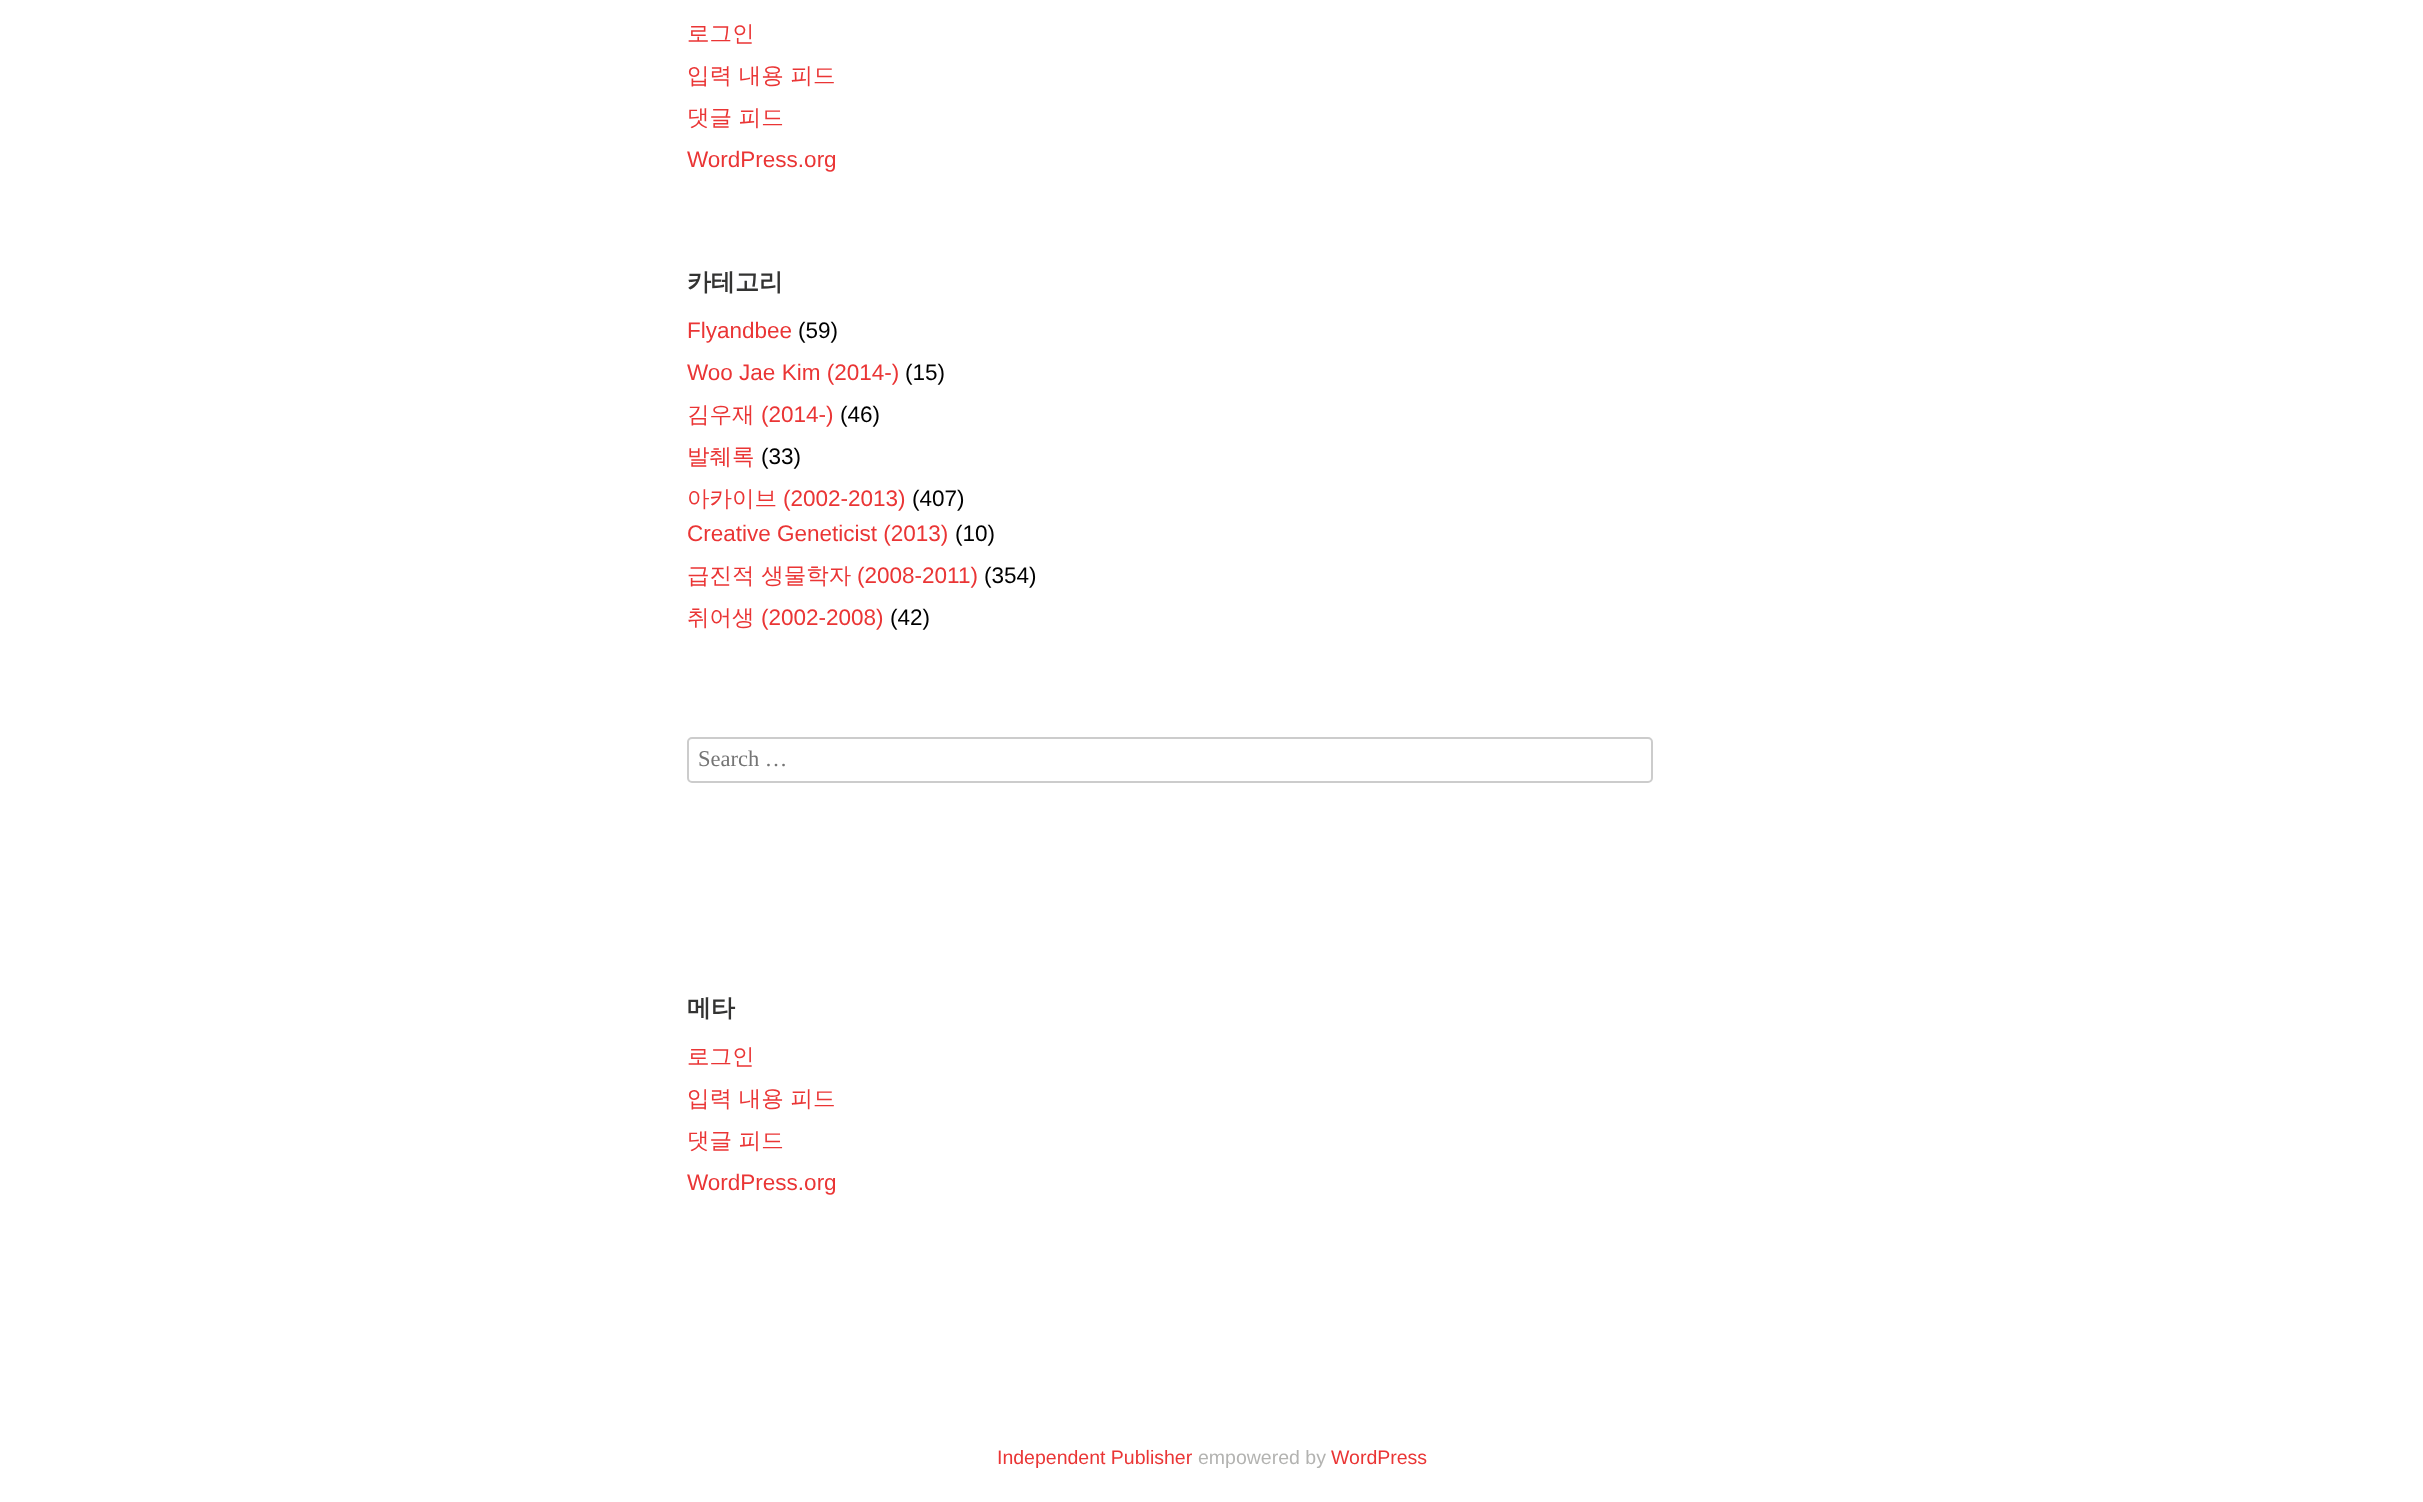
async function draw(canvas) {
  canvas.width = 2423
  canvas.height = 1502
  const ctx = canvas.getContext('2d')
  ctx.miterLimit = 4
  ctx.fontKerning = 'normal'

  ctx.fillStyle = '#fff'
  ctx.fillRect(0, 0, 2423, 1502)
  ctx.font = '500 22.5px WenQuanYi Zen Hei'
  ctx.fillStyle = '#ea3535'
  ctx.fillText('로그인', 687, 41)
  ctx.fillText('입력 내용 피드', 687, 83)
  ctx.fillText('댓글 피드', 687, 125)
  ctx.font = '22.5px Liberation Sans'
  ctx.fillText('WordPress.org', 687, 167)
  ctx.font = 'bold 24px WenQuanYi Zen Hei'
  ctx.fillStyle = '#333332'
  ctx.fillText('카테고리', 687, 290)
  ctx.font = '22.5px Liberation Sans'
  ctx.fillStyle = '#ea3535'
  ctx.fillText('Flyandbee', 687, 338)
  ctx.fillStyle = '#000'
  ctx.fillText('(59)', 798, 338)
  ctx.fillStyle = '#ea3535'
  ctx.fillText('Woo Jae Kim (2014-)', 687, 380)
  ctx.fillStyle = '#000'
  ctx.fillText('(15)', 905, 380)
  ctx.font = '500 22.5px WenQuanYi Zen Hei'
  ctx.fillStyle = '#ea3535'
  ctx.fillText('김우재', 687, 422)
  ctx.font = '22.5px Liberation Sans'
  ctx.fillText('(2014-)', 761, 422)
  ctx.fillStyle = '#000'
  ctx.fillText('(46)', 840, 422)
  ctx.font = '500 22.5px WenQuanYi Zen Hei'
  ctx.fillStyle = '#ea3535'
  ctx.fillText('발췌록', 687, 464)
  ctx.font = '22.5px Liberation Sans'
  ctx.fillStyle = '#000'
  ctx.fillText('(33)', 761, 464)
  ctx.font = '500 22.5px WenQuanYi Zen Hei'
  ctx.fillStyle = '#ea3535'
  ctx.fillText('아카이브', 687, 506)
  ctx.font = '22.5px Liberation Sans'
  ctx.fillText('(2002-2013)', 783, 506)
  ctx.fillStyle = '#000'
  ctx.fillText('(407)', 912, 506)
  ctx.fillStyle = '#ea3535'
  ctx.fillText('Creative Geneticist (2013)', 687, 541)
  ctx.fillStyle = '#000'
  ctx.fillText('(10)', 955, 541)
  ctx.font = '500 22.5px WenQuanYi Zen Hei'
  ctx.fillStyle = '#ea3535'
  ctx.fillText('급진적 생물학자', 687, 583)
  ctx.font = '22.5px Liberation Sans'
  ctx.fillText('(2008-2011)', 857, 583)
  ctx.fillStyle = '#000'
  ctx.fillText('(354)', 984, 583)
  ctx.font = '500 22.5px WenQuanYi Zen Hei'
  ctx.fillStyle = '#ea3535'
  ctx.fillText('취어생', 687, 625)
  ctx.font = '22.5px Liberation Sans'
  ctx.fillText('(2002-2008)', 761, 625)
  ctx.fillStyle = '#000'
  ctx.fillText('(42)', 890, 625)
  ctx.beginPath()
  ctx.roundRect(688, 738, 964, 44, 4)
  ctx.strokeStyle = '#ccc'
  ctx.lineWidth = 2
  ctx.stroke()
  ctx.font = '22.5px Liberation Serif'
  ctx.fillStyle = '#757575'
  ctx.fillText('Search …', 698, 766)
  ctx.font = 'bold 24px WenQuanYi Zen Hei'
  ctx.fillStyle = '#333332'
  ctx.fillText('메타', 687, 1016)
  ctx.font = '500 22.5px WenQuanYi Zen Hei'
  ctx.fillStyle = '#ea3535'
  ctx.fillText('로그인', 687, 1064)
  ctx.fillText('입력 내용 피드', 687, 1106)
  ctx.fillText('댓글 피드', 687, 1148)
  ctx.font = '22.5px Liberation Sans'
  ctx.fillText('WordPress.org', 687, 1190)
  ctx.font = '19.5px Liberation Sans'
  ctx.fillText('Independent Publisher', 997, 1464)
  ctx.fillStyle = '#b3b3b1'
  ctx.fillText('empowered by', 1198, 1464)
  ctx.fillStyle = '#ea3535'
  ctx.fillText('WordPress', 1331, 1464)
}

draw(document.querySelector('canvas'))
